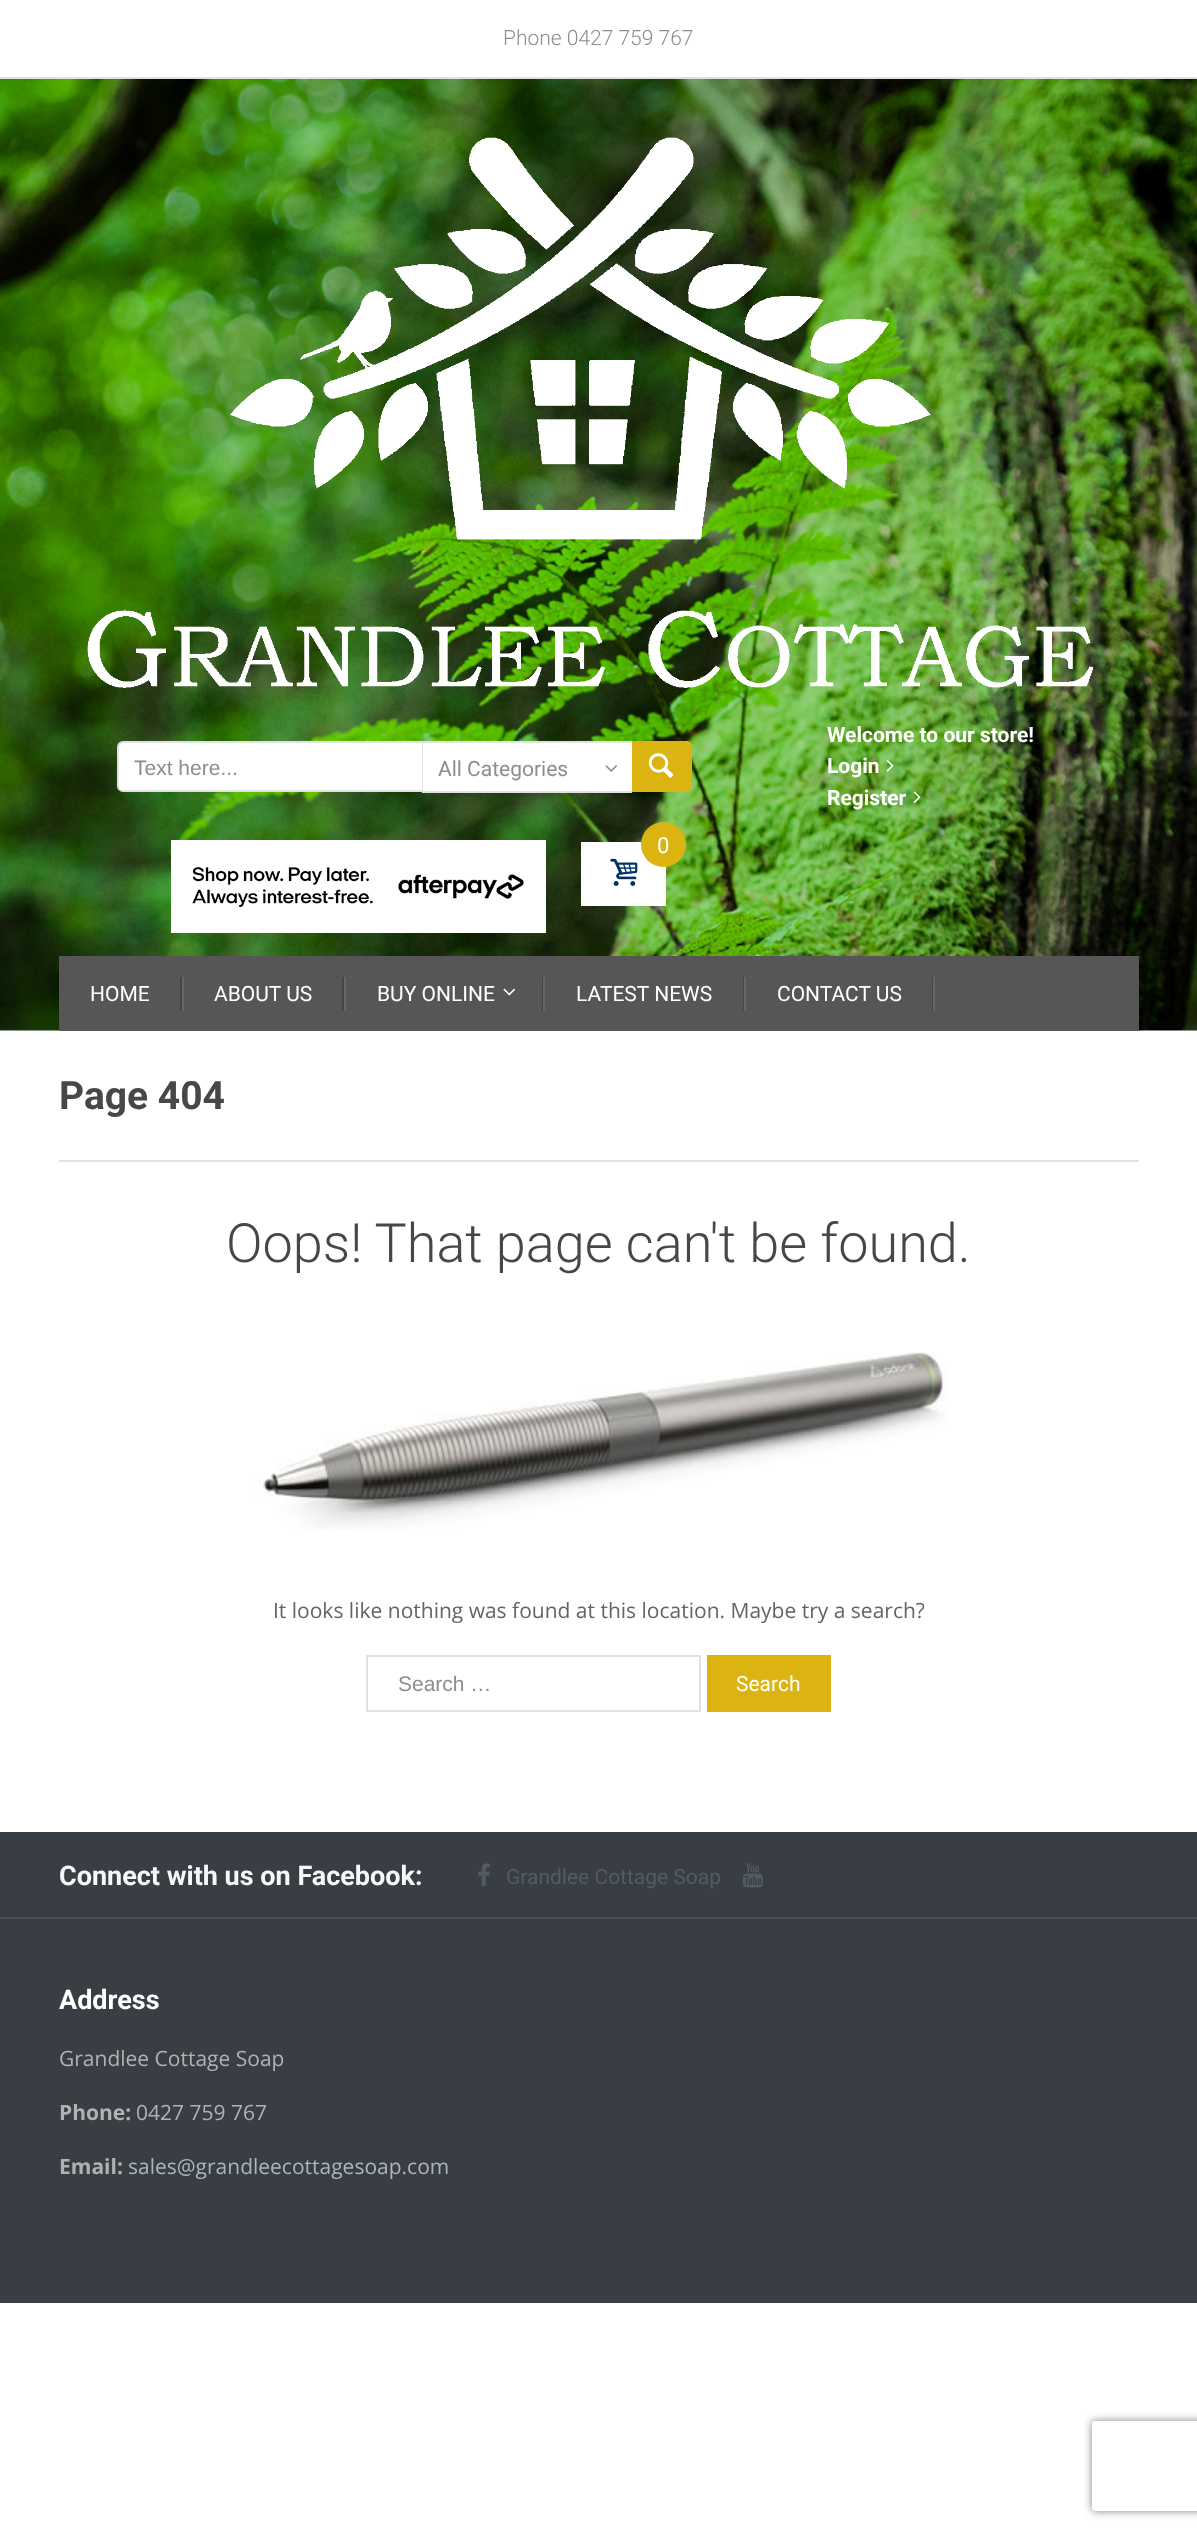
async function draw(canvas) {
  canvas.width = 1197
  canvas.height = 2531
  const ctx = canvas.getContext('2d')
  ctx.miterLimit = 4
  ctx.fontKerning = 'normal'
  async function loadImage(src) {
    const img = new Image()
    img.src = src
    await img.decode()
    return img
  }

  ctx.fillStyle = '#fff'
  ctx.fillRect(0, 0, 1197, 2531)
  ctx.drawImage(await loadImage('image0.png'), 0, 79, 1197, 952)
  ctx.fillStyle = '#e1e1e1'
  ctx.fillRect(0, 77, 1197, 2)
  ctx.font = '300 21px Roboto'
  ctx.fillStyle = '#898e91'
  ctx.fillText('Phone 0427 759 767', 503, 45)
  ctx.drawImage(await loadImage('image1.png'), 87, 137, 1007, 551)
  ctx.fillStyle = '#fff'
  ctx.beginPath()
  ctx.roundRect(118, 742, 573, 49, 5)
  ctx.fill()
  ctx.strokeStyle = '#e1e1e1'
  ctx.lineWidth = 2
  ctx.stroke()
  ctx.font = '21px Liberation Sans'
  ctx.fillStyle = '#898e91'
  ctx.fillText('Text here...', 134, 775)
  ctx.fillStyle = '#e1e1e1'
  ctx.fillRect(422, 792, 210, 1)
  ctx.fillRect(422, 741, 2, 51)
  ctx.fillStyle = '#fff'
  ctx.fillRect(423, 743, 209, 48)
  ctx.font = '21px Roboto'
  ctx.fillStyle = '#898e91'
  ctx.fillText('All Categories', 438, 776)
  ctx.drawImage(await loadImage('image2.png'), 605, 765, 12, 7)
  ctx.fillStyle = '#dbb411'
  ctx.beginPath()
  ctx.roundRect(632, 741, 60, 51, [0, 6, 6, 0])
  ctx.fill()
  ctx.drawImage(await loadImage('image3.png'), 648, 753, 26, 25)
  ctx.font = 'bold 21px Roboto'
  ctx.fillStyle = '#fff'
  ctx.fillText('Welcome to our store!', 827, 742)
  ctx.fillText('Login', 827, 773)
  ctx.drawImage(await loadImage('image4.png'), 886, 760, 8, 12)
  ctx.fillText('Register', 827, 805)
  ctx.drawImage(await loadImage('image5.png'), 913, 791, 8, 12)
  ctx.fillRect(581, 842, 85, 64)
  ctx.fillStyle = '#dbb411'
  ctx.beginPath()
  ctx.arc(663.5, 844.5, 22.5, 0, 2 * Math.PI)
  ctx.fill()
  ctx.font = '22px Roboto'
  ctx.fillStyle = '#fff'
  ctx.fillText('0', 657, 853)
  ctx.drawImage(await loadImage('image6.png'), 610, 858, 28, 28)
  ctx.drawImage(await loadImage('image7.png'), 171, 840, 375, 93)
  ctx.fillStyle = '#565656'
  ctx.fillRect(59, 956, 1080, 75)
  ctx.font = '21px Roboto'
  ctx.fillStyle = '#fff'
  ctx.fillText('HOME', 90, 1001)
  ctx.fillStyle = '#454545'
  ctx.fillRect(180, 977, 2, 34)
  ctx.fillStyle = '#676767'
  ctx.fillRect(182, 977, 2, 34)
  ctx.fillStyle = '#fff'
  ctx.fillText('ABOUT US', 214, 1001)
  ctx.fillStyle = '#454545'
  ctx.fillRect(342, 977, 2, 34)
  ctx.fillStyle = '#676767'
  ctx.fillRect(344, 977, 2, 34)
  ctx.fillStyle = '#fff'
  ctx.fillText('BUY ONLINE', 377, 1001)
  ctx.drawImage(await loadImage('image8.png'), 503, 988, 12, 8)
  ctx.fillStyle = '#454545'
  ctx.fillRect(542, 977, 1, 34)
  ctx.fillStyle = '#676767'
  ctx.fillRect(543, 977, 2, 34)
  ctx.fillStyle = '#fff'
  ctx.fillText('LATEST NEWS', 576, 1001)
  ctx.fillStyle = '#454545'
  ctx.fillRect(743, 977, 1, 34)
  ctx.fillStyle = '#676767'
  ctx.fillRect(744, 977, 2, 34)
  ctx.fillStyle = '#fff'
  ctx.fillText('CONTACT US', 777, 1001)
  ctx.fillStyle = '#454545'
  ctx.fillRect(932, 977, 1, 34)
  ctx.fillStyle = '#676767'
  ctx.fillRect(933, 977, 2, 34)
  ctx.fillStyle = '#e1e1e1'
  ctx.fillRect(59, 1160, 1080, 2)
  ctx.font = 'bold 39px Roboto'
  ctx.fillStyle = '#484747'
  ctx.fillText('Page 404', 59, 1109)
  ctx.font = '300 54px Roboto'
  ctx.fillText('Oops! That page can\'t be found.', 226, 1262)
  ctx.drawImage(await loadImage('image9.png'), 255, 1352, 693, 179)
  ctx.font = '21px Open Sans'
  ctx.fillStyle = '#646565'
  ctx.fillText('It looks like nothing was found at this location. Maybe try a search?', 273, 1618)
  ctx.strokeRect(367, 1656, 333, 55)
  ctx.font = '21px Liberation Sans'
  ctx.fillStyle = '#898e91'
  ctx.fillText('Search …', 398, 1691)
  ctx.fillStyle = '#dbb411'
  ctx.fillRect(707, 1655, 124, 57)
  ctx.font = '21px Roboto'
  ctx.fillStyle = '#fff'
  ctx.fillText('Search', 736, 1691)
  ctx.fillStyle = '#393e45'
  ctx.fillRect(0, 1832, 1197, 471)
  ctx.fillStyle = '#484e56'
  ctx.fillRect(0, 1917, 1197, 2)
  ctx.font = 'bold 27px Roboto'
  ctx.fillStyle = '#f7f7f7'
  ctx.fillText('Connect with us on Facebook:', 59, 1885)
  ctx.drawImage(await loadImage('image10.png'), 478, 1863, 12, 23)
  ctx.font = '21px Roboto'
  ctx.fillStyle = '#545b65'
  ctx.fillText('Grandlee Cottage Soap', 506, 1884)
  ctx.drawImage(await loadImage('image11.png'), 742, 1863, 21, 25)
  ctx.font = 'bold 27px Roboto'
  ctx.fillStyle = '#fff'
  ctx.fillText('Address', 59, 2009)
  ctx.font = '21px Open Sans'
  ctx.fillStyle = '#b1b1b1'
  ctx.fillText('Grandlee Cottage Soap', 59, 2066)
  ctx.font = 'bold 21px Open Sans'
  ctx.fillText('Phone:', 59, 2120)
  ctx.font = '21px Open Sans'
  ctx.fillText('0427 759 767', 136, 2120)
  ctx.font = 'bold 21px Open Sans'
  ctx.fillText('Email:', 59, 2174)
  ctx.font = '21px Open Sans'
  ctx.fillStyle = '#aeb4bc'
  ctx.fillText('sales@grandleecottagesoap.com', 128, 2174)
  ctx.save()
  ctx.beginPath()
  ctx.moveTo(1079, 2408)
  ctx.lineTo(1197, 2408)
  ctx.lineTo(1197, 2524)
  ctx.lineTo(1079, 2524)
  ctx.closePath()
  ctx.moveTo(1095, 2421)
  ctx.lineTo(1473, 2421)
  ctx.bezierCurveTo(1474.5, 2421, 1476, 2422.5, 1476, 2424)
  ctx.lineTo(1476, 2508)
  ctx.bezierCurveTo(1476, 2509.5, 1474.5, 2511, 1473, 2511)
  ctx.lineTo(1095, 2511)
  ctx.bezierCurveTo(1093.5, 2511, 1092, 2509.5, 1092, 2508)
  ctx.lineTo(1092, 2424)
  ctx.bezierCurveTo(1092, 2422.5, 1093.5, 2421, 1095, 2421)
  ctx.closePath()
  ctx.clip('evenodd')
  ctx.fillStyle = '#808080'
  ctx.filter = 'blur(4px)'
  ctx.beginPath()
  ctx.roundRect(1092, 2421, 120, 90, 3)
  ctx.fill()
  ctx.filter = 'none'
  ctx.restore()
}

draw(document.querySelector('canvas'))
